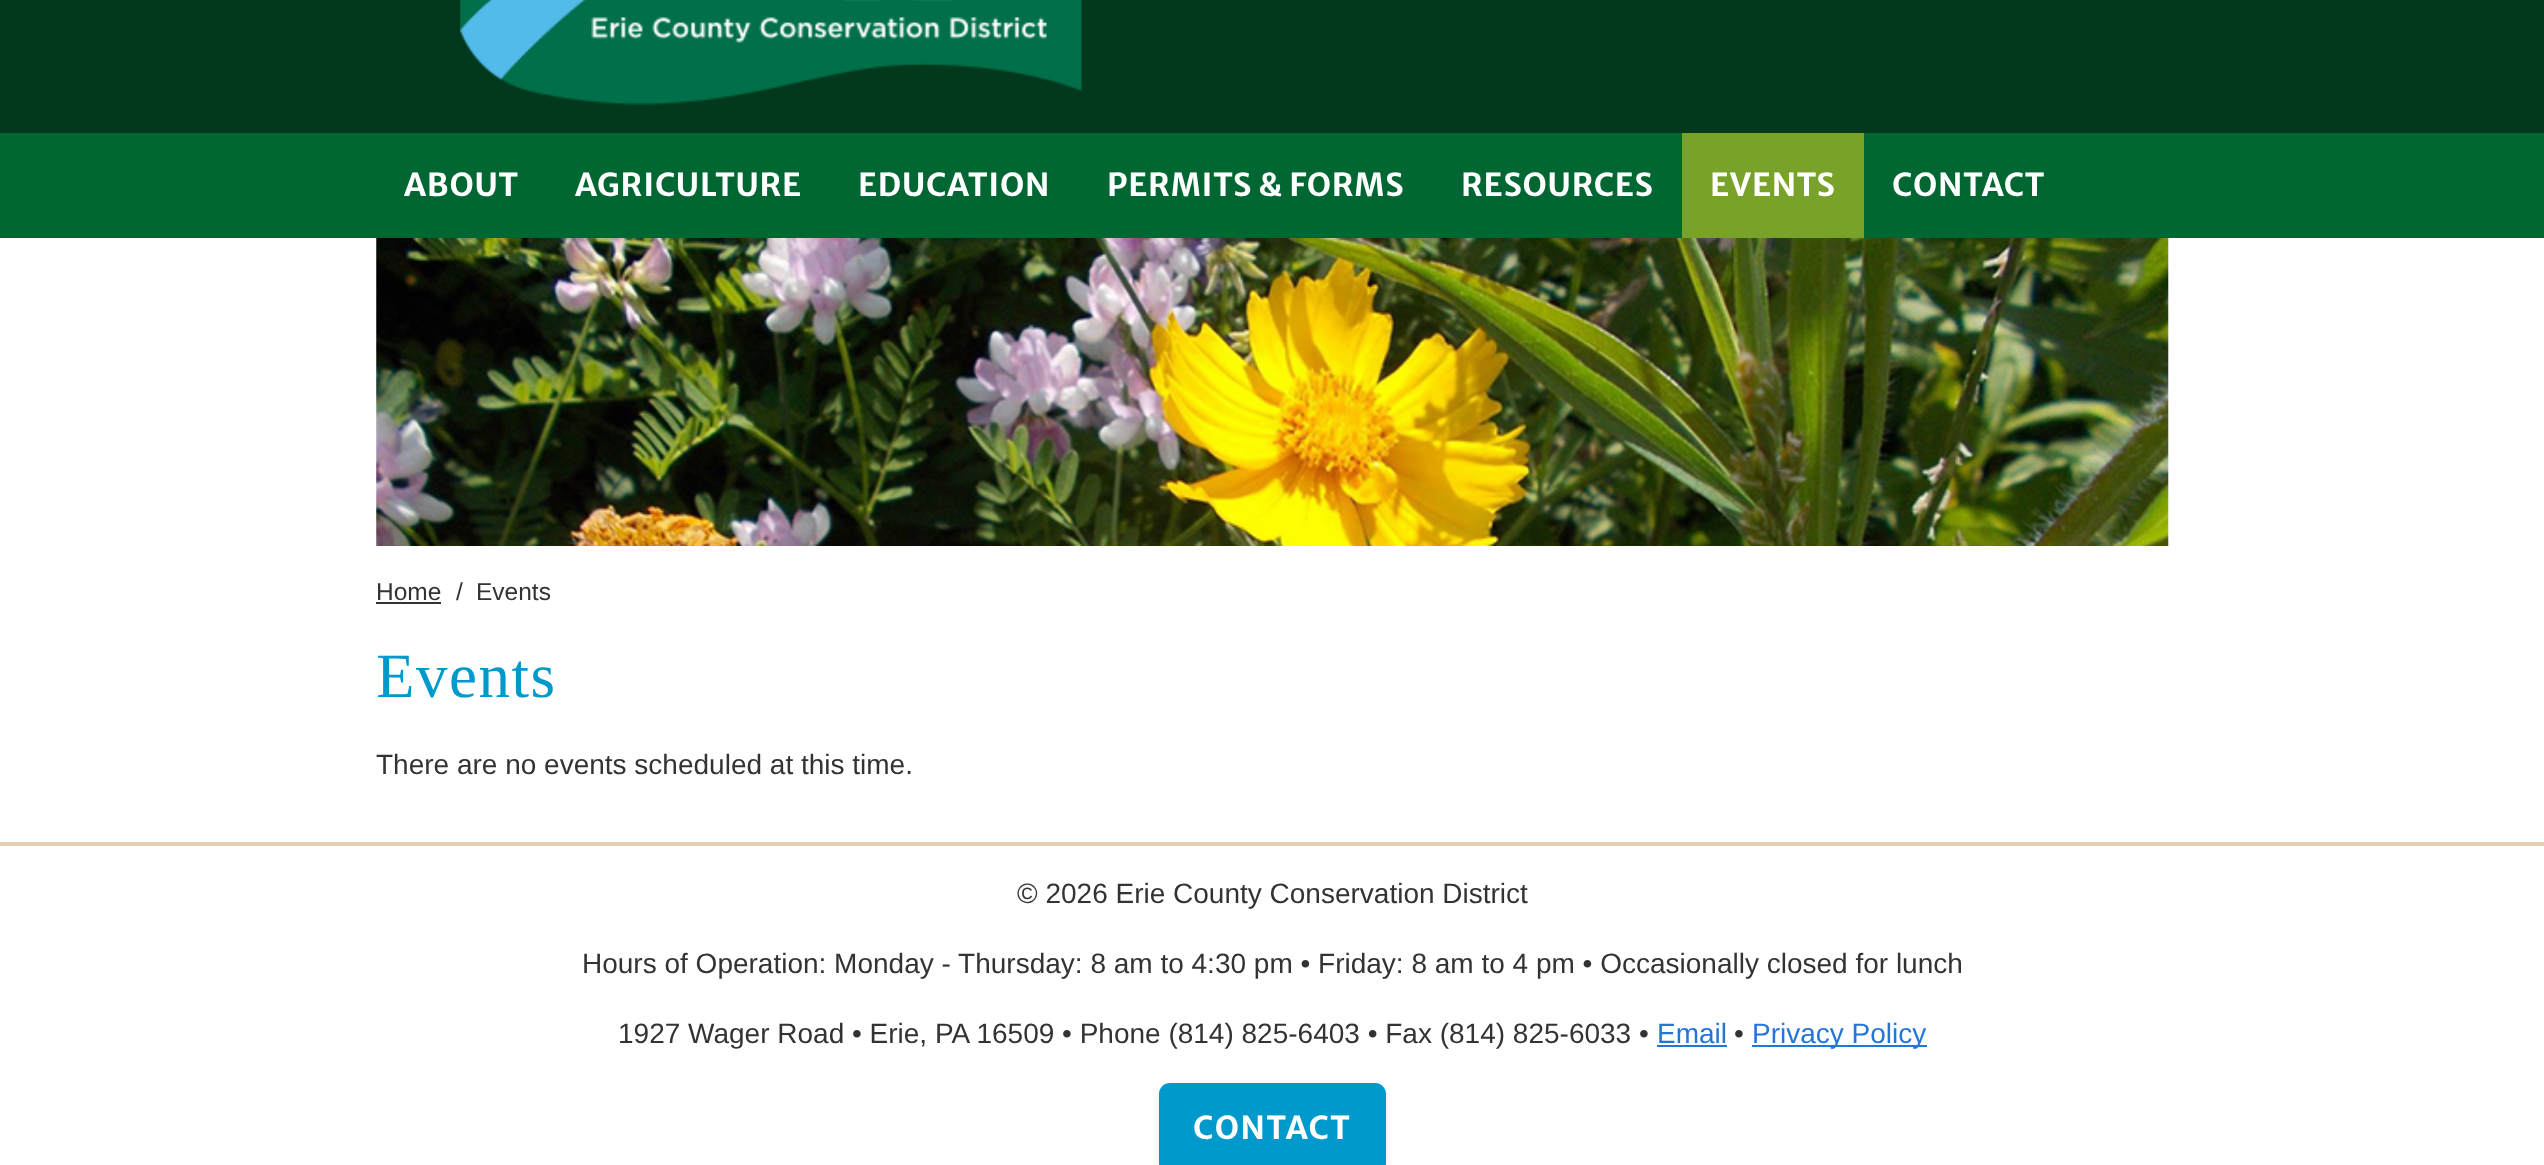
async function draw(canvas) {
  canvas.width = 2544
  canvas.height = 1165
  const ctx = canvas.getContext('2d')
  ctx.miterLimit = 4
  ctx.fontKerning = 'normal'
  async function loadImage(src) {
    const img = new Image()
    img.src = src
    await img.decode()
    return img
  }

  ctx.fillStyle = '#fff'
  ctx.fillRect(0, 0, 2544, 1165)
  ctx.fillStyle = '#02381c'
  ctx.fillRect(0, 0, 2544, 133)
  ctx.drawImage(await loadImage('image0.png'), 460, 0, 622, 105)
  ctx.fillStyle = '#006632'
  ctx.fillRect(0, 133, 2544, 105)
  ctx.letterSpacing = '0.75px'
  ctx.font = 'bold 31.5px Merriweather Sans'
  ctx.fillStyle = '#fff'
  ctx.fillText('ABOUT', 404, 196)
  ctx.fillText('AGRICULTURE', 575, 196)
  ctx.fillText('EDUCATION', 858, 196)
  ctx.fillText('PERMITS & FORMS', 1107, 196)
  ctx.fillText('RESOURCES', 1461, 196)
  ctx.fillStyle = '#78a229'
  ctx.fillRect(1682, 133, 182, 105)
  ctx.fillStyle = '#fff'
  ctx.fillText('EVENTS', 1710, 196)
  ctx.fillText('CONTACT', 1892, 196)
  ctx.drawImage(await loadImage('image1.png'), 376, 238, 1793, 308)
  ctx.letterSpacing = '0px'
  ctx.font = '24.5px Liberation Sans'
  ctx.fillStyle = '#333'
  ctx.fillText('Home', 376, 600)
  ctx.fillRect(376, 602, 65, 2)
  ctx.fillText('/', 456, 600)
  ctx.fillText('Events', 476, 600)
  ctx.letterSpacing = '1.5px'
  ctx.font = '63px Liberation Serif'
  ctx.fillStyle = '#09c'
  ctx.fillText('Events', 376, 697)
  ctx.letterSpacing = '0px'
  ctx.font = '28px Liberation Sans'
  ctx.fillStyle = '#333'
  ctx.fillText('There are no events scheduled at this time.', 376, 774)
  ctx.fillStyle = '#e4cfb7'
  ctx.fillRect(0, 842, 2544, 4)
  ctx.fillStyle = '#333'
  ctx.fillText('© 2026 Erie County Conservation District', 1017, 903)
  ctx.fillText('Hours of Operation: Monday - Thursday: 8 am to 4:30 pm • Friday: 8 am to 4 pm • Occasionally closed for lunch', 582, 973)
  ctx.fillText('1927 Wager Road • Erie, PA 16509 • Phone (814) 825-6403 • Fax (814) 825-6033 •', 618, 1043)
  ctx.fillStyle = '#2376d8'
  ctx.fillText('Email', 1657, 1043)
  ctx.fillRect(1657, 1045, 70, 2)
  ctx.fillStyle = '#333'
  ctx.fillText('•', 1734, 1043)
  ctx.fillStyle = '#2376d8'
  ctx.fillRect(1752, 1045, 175, 2)
  ctx.fillText('Privacy Policy', 1752, 1043)
  ctx.fillStyle = '#0000001a'
  ctx.filter = 'blur(2.5px)'
  ctx.beginPath()
  ctx.roundRect(1159, 1085, 227, 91, 11)
  ctx.fill()
  ctx.filter = 'none'
  ctx.fillStyle = '#09c'
  ctx.beginPath()
  ctx.roundRect(1159, 1083, 227, 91, 11)
  ctx.fill()
  ctx.letterSpacing = '1.5px'
  ctx.font = 'bold 31.5px Merriweather Sans'
  ctx.fillStyle = '#fff'
  ctx.fillText('CONTACT', 1193, 1139)
}

draw(document.querySelector('canvas'))
